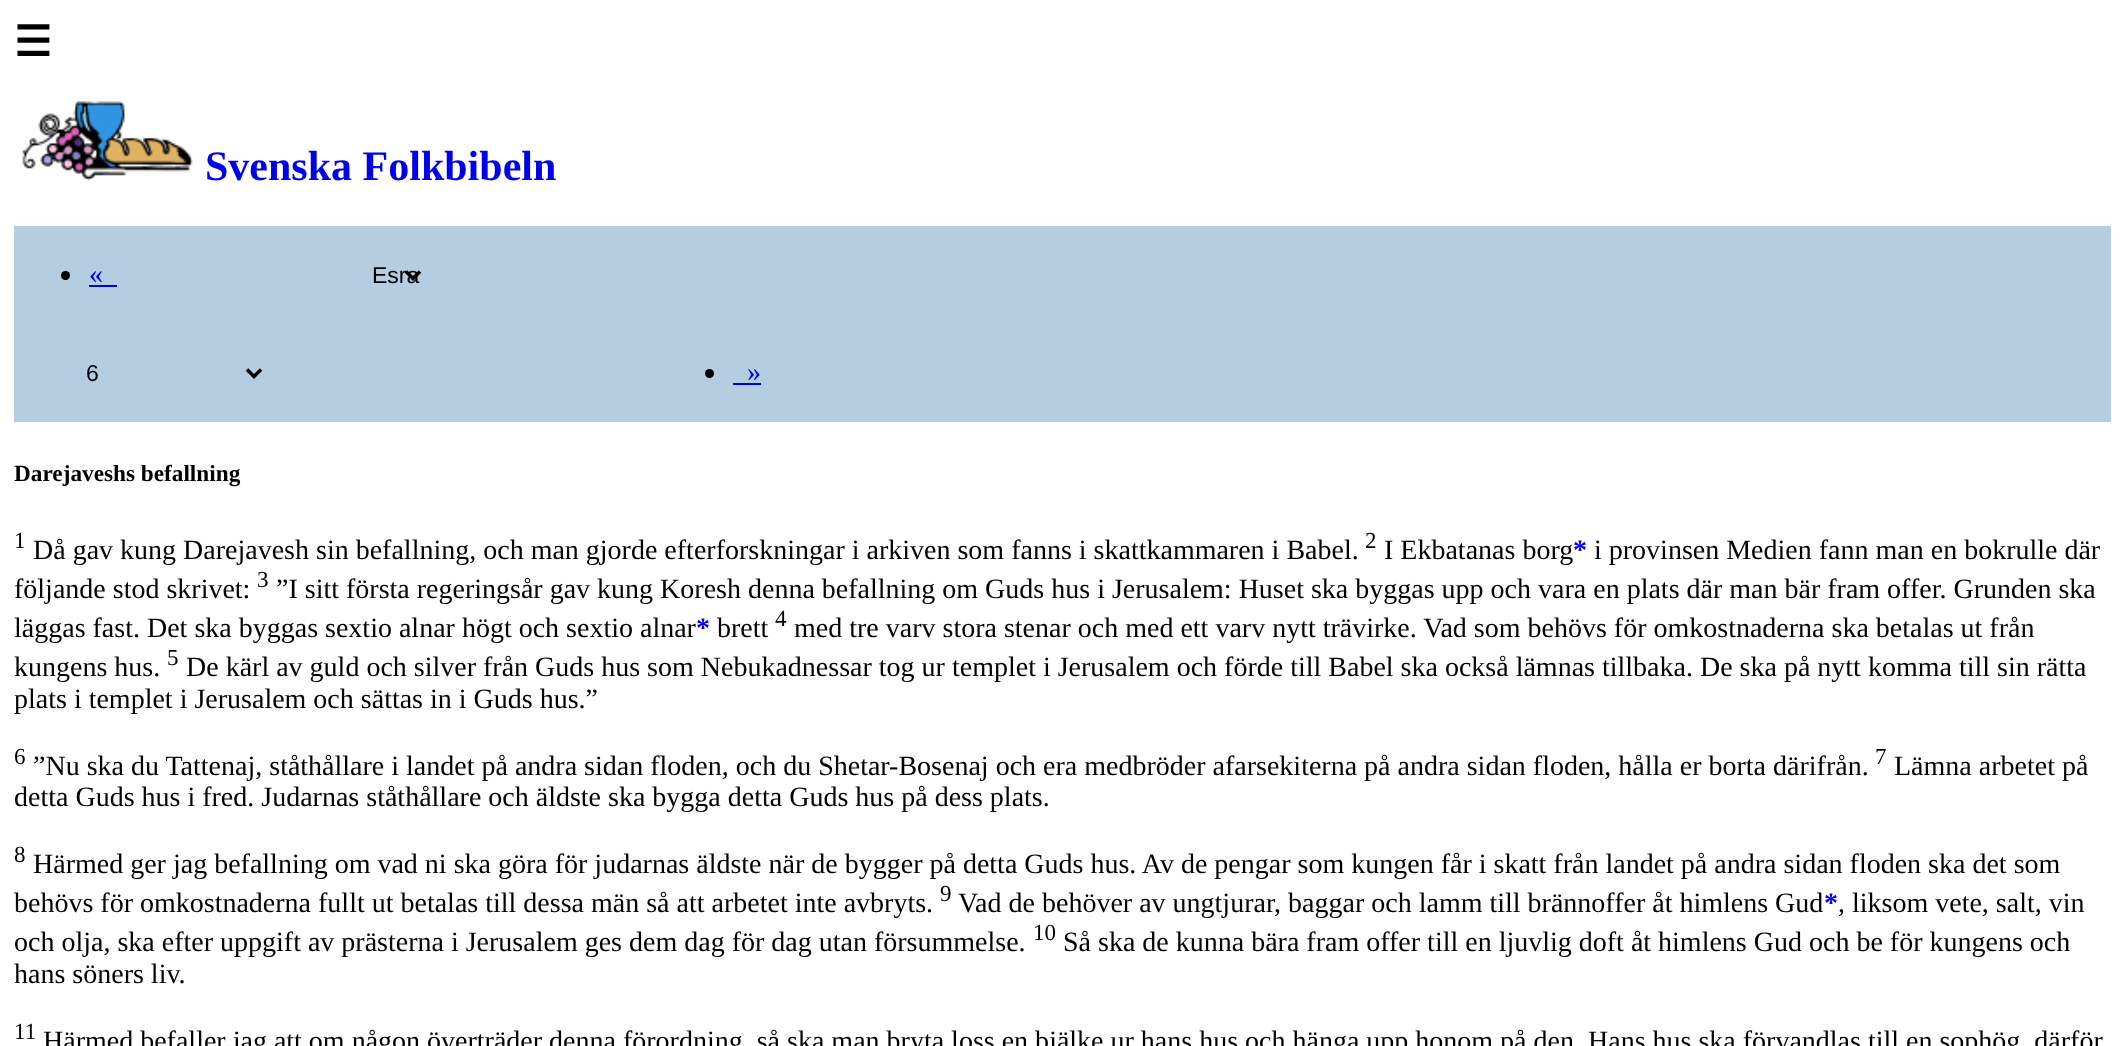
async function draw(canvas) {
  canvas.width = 2123
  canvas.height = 1046
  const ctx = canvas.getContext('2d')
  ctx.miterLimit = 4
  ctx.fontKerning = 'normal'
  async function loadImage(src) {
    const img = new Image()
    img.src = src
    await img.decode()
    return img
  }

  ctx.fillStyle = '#fff'
  ctx.fillRect(0, 0, 2123, 1046)
  ctx.font = 'bold 42px DejaVu Sans'
  ctx.fillStyle = '#000'
  ctx.fillText('☰', 14, 56)
  ctx.drawImage(await loadImage('image0.png'), 22, 101, 171, 80)
  ctx.font = 'bold 42px Liberation Serif'
  ctx.fillStyle = '#00e'
  ctx.fillText('Svenska Folkbibeln', 205, 180)
  ctx.fillStyle = '#b4cde1'
  ctx.fillRect(14, 226, 2097, 196)
  ctx.fillStyle = '#000'
  ctx.beginPath()
  ctx.arc(65.5, 275.5, 4.5, 0, 2 * Math.PI)
  ctx.fill()
  ctx.font = '28px Liberation Serif'
  ctx.fillStyle = '#00e'
  ctx.fillText('«', 89, 283)
  ctx.fillRect(89, 285, 28, 2)
  ctx.beginPath()
  ctx.moveTo(406, 271.5)
  ctx.lineTo(413, 278.5)
  ctx.lineTo(420, 271.5)
  ctx.strokeStyle = '#000'
  ctx.lineWidth = 3.5
  ctx.stroke()
  ctx.font = '23px Liberation Sans'
  ctx.fillStyle = '#000'
  ctx.fillText('Esra', 372, 283)
  ctx.beginPath()
  ctx.moveTo(247, 369.5)
  ctx.lineTo(254, 376.5)
  ctx.lineTo(261, 369.5)
  ctx.stroke()
  ctx.fillText('6', 86, 381)
  ctx.beginPath()
  ctx.arc(709.5, 373.5, 4.5, 0, 2 * Math.PI)
  ctx.fill()
  ctx.font = '28px Liberation Serif'
  ctx.fillStyle = '#00e'
  ctx.fillText('»', 747, 381)
  ctx.fillRect(733, 383, 28, 2)
  ctx.font = 'bold 23.25px Liberation Serif'
  ctx.fillStyle = '#000'
  ctx.fillText('Darejaveshs befallning', 14, 481)
  ctx.font = '23px Liberation Serif'
  ctx.fillText('1', 14, 548)
  ctx.font = '28px Liberation Serif'
  ctx.fillText('Då gav kung Darejavesh sin befallning, och man gjorde efterforskningar i arkiven som fanns i skattkammaren i Babel.', 33, 559)
  ctx.font = '23px Liberation Serif'
  ctx.fillText('2', 1365, 548)
  ctx.font = '28px Liberation Serif'
  ctx.fillText('I Ekbatanas borg', 1384, 559)
  ctx.font = 'bold 28px Liberation Serif'
  ctx.fillStyle = '#00e'
  ctx.fillText('*', 1573, 559)
  ctx.font = '28px Liberation Serif'
  ctx.fillStyle = '#000'
  ctx.fillText('i provinsen Medien fann man en bokrulle där', 1594, 559)
  ctx.fillText('följande stod skrivet:', 14, 598)
  ctx.font = '23px Liberation Serif'
  ctx.fillText('3', 257, 587)
  ctx.font = '28px Liberation Serif'
  ctx.fillText('”I sitt första regeringsår gav kung Koresh denna befallning om Guds hus i Jerusalem: Huset ska byggas upp och vara en plats där man bär fram offer. Grunden ska', 276, 598)
  ctx.fillText('läggas fast. Det ska byggas sextio alnar högt och sextio alnar', 14, 637)
  ctx.font = 'bold 28px Liberation Serif'
  ctx.fillStyle = '#00e'
  ctx.fillText('*', 696, 637)
  ctx.font = '28px Liberation Serif'
  ctx.fillStyle = '#000'
  ctx.fillText('brett', 717, 637)
  ctx.font = '23px Liberation Serif'
  ctx.fillText('4', 775, 626)
  ctx.font = '28px Liberation Serif'
  ctx.fillText('med tre varv stora stenar och med ett varv nytt trävirke. Vad som behövs för omkostnaderna ska betalas ut från', 794, 637)
  ctx.fillText('kungens hus.', 14, 676)
  ctx.font = '23px Liberation Serif'
  ctx.fillText('5', 167, 665)
  ctx.font = '28px Liberation Serif'
  ctx.fillText('De kärl av guld och silver från Guds hus som Nebukadnessar tog ur templet i Jerusalem och förde till Babel ska också lämnas tillbaka. De ska på nytt komma till sin rätta', 186, 676)
  ctx.fillText('plats i templet i Jerusalem och sättas in i Guds hus.”', 14, 708)
  ctx.font = '23px Liberation Serif'
  ctx.fillText('6', 14, 764)
  ctx.font = '28px Liberation Serif'
  ctx.fillText('”Nu ska du Tattenaj, ståthållare i landet på andra sidan floden, och du Shetar-Bosenaj och era medbröder afarsekiterna på andra sidan floden, hålla er borta därifrån.', 33, 775)
  ctx.font = '23px Liberation Serif'
  ctx.fillText('7', 1875, 764)
  ctx.font = '28px Liberation Serif'
  ctx.fillText('Lämna arbetet på', 1894, 775)
  ctx.fillText('detta Guds hus i fred. Judarnas ståthållare och äldste ska bygga detta Guds hus på dess plats.', 14, 806)
  ctx.font = '23px Liberation Serif'
  ctx.fillText('8', 14, 862)
  ctx.font = '28px Liberation Serif'
  ctx.fillText('Härmed ger jag befallning om vad ni ska göra för judarnas äldste när de bygger på detta Guds hus. Av de pengar som kungen får i skatt från landet på andra sidan floden ska det som', 33, 873)
  ctx.fillText('behövs för omkostnaderna fullt ut betalas till dessa män så att arbetet inte avbryts.', 14, 912)
  ctx.font = '23px Liberation Serif'
  ctx.fillText('9', 940, 901)
  ctx.font = '28px Liberation Serif'
  ctx.fillText('Vad de behöver av ungtjurar, baggar och lamm till brännoffer åt himlens Gud', 958, 912)
  ctx.font = 'bold 28px Liberation Serif'
  ctx.fillStyle = '#00e'
  ctx.fillText('*', 1824, 912)
  ctx.font = '28px Liberation Serif'
  ctx.fillStyle = '#000'
  ctx.fillText(', liksom vete, salt, vin', 1838, 912)
  ctx.fillText('och olja, ska efter uppgift av prästerna i Jerusalem ges dem dag för dag utan försummelse.', 14, 951)
  ctx.font = '23px Liberation Serif'
  ctx.fillText('10', 1033, 940)
  ctx.font = '28px Liberation Serif'
  ctx.fillText('Så ska de kunna bära fram offer till en ljuvlig doft åt himlens Gud och be för kungens och', 1063, 951)
  ctx.fillText('hans söners liv.', 14, 983)
  ctx.font = '23px Liberation Serif'
  ctx.fillText('11', 14, 1039)
  ctx.font = '28px Liberation Serif'
  ctx.fillText('Härmed befaller jag att om någon överträder denna förordning, så ska man bryta loss en bjälke ur hans hus och hänga upp honom på den. Hans hus ska förvandlas till en sophög, därför', 43, 1050)
}

draw(document.querySelector('canvas'))
